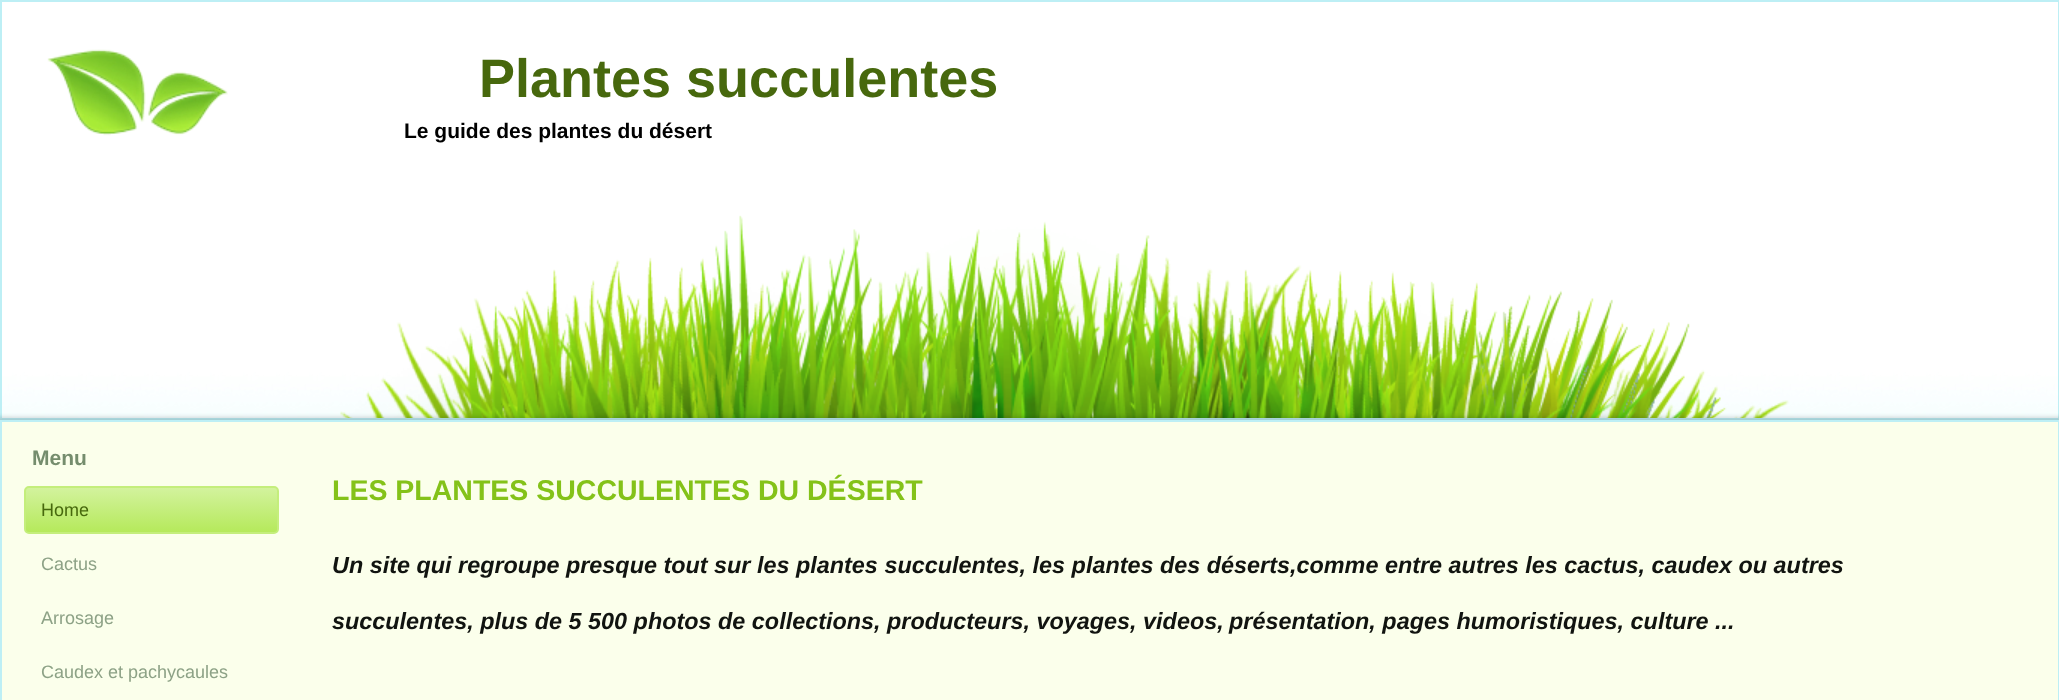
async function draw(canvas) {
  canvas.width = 2059
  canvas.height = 700
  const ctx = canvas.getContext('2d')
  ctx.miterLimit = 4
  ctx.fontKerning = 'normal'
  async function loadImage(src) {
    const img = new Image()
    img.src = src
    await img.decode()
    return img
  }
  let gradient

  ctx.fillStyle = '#fff'
  ctx.fillRect(0, 0, 2059, 700)
  ctx.drawImage(await loadImage('image0.png'), 2, 2, 2056, 416)
  ctx.strokeStyle = '#bdeff5'
  ctx.lineWidth = 2
  ctx.strokeRect(1, 1, 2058, 418)
  ctx.drawImage(await loadImage('image1.png'), 47, 49, 181, 87)
  ctx.font = 'bold 54px Liberation Sans'
  ctx.fillStyle = '#47680d'
  ctx.fillText('Plantes succulentes', 479, 97)
  ctx.font = 'bold 21px Liberation Sans'
  ctx.fillStyle = '#000'
  ctx.fillText('Le guide des plantes du désert', 404, 138)
  ctx.fillStyle = '#00000026'
  ctx.filter = 'blur(2px)'
  ctx.beginPath()
  ctx.rect(-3, 417, 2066, 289)
  ctx.fill()
  ctx.filter = 'none'
  ctx.fillStyle = '#fbffeb'
  ctx.fillRect(2, 422, 2056, 278)
  ctx.fillStyle = '#bdeff5'
  ctx.fillRect(0, 420, 2059, 2)
  ctx.fillRect(2058, 420, 1, 280)
  ctx.fillRect(0, 420, 2, 280)
  ctx.fillStyle = '#758d6d'
  ctx.fillText('Menu', 32, 465)
  gradient = ctx.createLinearGradient(152, 486, 152, 534)
  gradient.addColorStop(0, '#d4f3a0')
  gradient.addColorStop(1, '#b4e958')
  ctx.fillStyle = gradient
  ctx.beginPath()
  ctx.roundRect(25, 487, 253, 46, 4)
  ctx.fill()
  ctx.strokeStyle = '#c4ee7c'
  ctx.stroke()
  ctx.font = '18px Liberation Sans'
  ctx.fillStyle = '#47680d'
  ctx.fillText('Home', 41, 516)
  ctx.fillStyle = '#8da286'
  ctx.fillText('Cactus', 41, 570)
  ctx.fillText('Arrosage', 41, 624)
  ctx.fillText('Caudex et pachycaules', 41, 678)
  ctx.font = 'bold 28.5px Liberation Sans'
  ctx.fillStyle = '#84c219'
  ctx.fillText('LES PLANTES SUCCULENTES DU DÉSERT', 332, 500)
  ctx.font = 'italic bold 23.4px Liberation Sans'
  ctx.fillStyle = '#111410'
  ctx.fillText('Un site qui regroupe presque tout sur les plantes succulentes, les plantes des déserts,comme entre autres les cactus, caudex ou autres', 332, 573)
  ctx.fillText('succulentes, plus de 5 500 photos de collections, producteurs, voyages, videos,', 332, 629)
  ctx.fillText('présentation, pages humoristiques, culture ...', 1229, 629)
}

draw(document.querySelector('canvas'))
